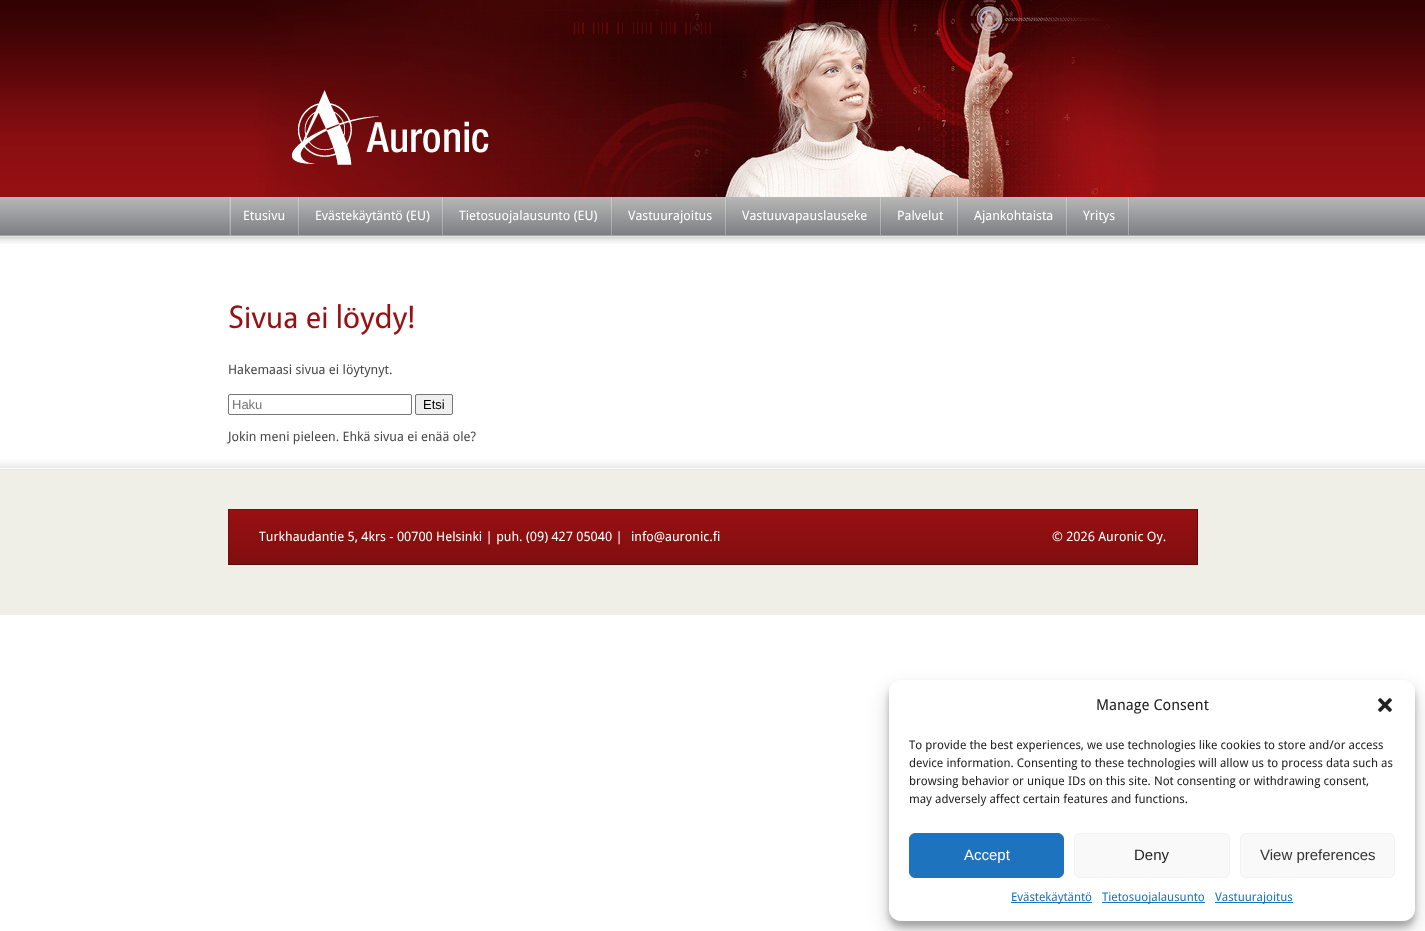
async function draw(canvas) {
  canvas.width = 1425
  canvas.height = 931
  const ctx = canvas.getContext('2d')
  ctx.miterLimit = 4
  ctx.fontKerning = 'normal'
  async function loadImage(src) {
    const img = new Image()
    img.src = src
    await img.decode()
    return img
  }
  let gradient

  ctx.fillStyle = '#fff'
  ctx.fillRect(0, 0, 1425, 931)
  ctx.drawImage(await loadImage('image0.png'), 0, 0, 1425, 197)
  ctx.drawImage(await loadImage('image1.png'), 254, 0, 911, 197)
  gradient = ctx.createLinearGradient(713, 197, 713, 235)
  gradient.addColorStop(0, '#b8b8b8')
  gradient.addColorStop(1, '#7d7e83')
  ctx.fillStyle = gradient
  ctx.fillRect(0, 197, 1425, 38)
  ctx.drawImage(await loadImage('image2.png'), 228, 197, 3, 38)
  ctx.drawImage(await loadImage('image3.png'), 298, 197, 2, 38)
  ctx.font = '13px Droid Sans'
  ctx.fillStyle = '#fff'
  ctx.fillText('Etusivu', 243, 220)
  ctx.drawImage(await loadImage('image3.png'), 442, 197, 2, 38)
  ctx.fillText('Evästekäytäntö (EU)', 315, 220)
  ctx.drawImage(await loadImage('image3.png'), 611, 197, 2, 38)
  ctx.fillText('Tietosuojalausunto (EU)', 459, 220)
  ctx.drawImage(await loadImage('image3.png'), 725, 197, 2, 38)
  ctx.fillText('Vastuurajoitus', 628, 220)
  ctx.drawImage(await loadImage('image3.png'), 880, 197, 2, 38)
  ctx.fillText('Vastuuvapauslauseke', 742, 220)
  ctx.drawImage(await loadImage('image3.png'), 957, 197, 2, 38)
  ctx.fillText('Palvelut', 897, 220)
  ctx.drawImage(await loadImage('image3.png'), 1066, 197, 2, 38)
  ctx.fillText('Ajankohtaista', 974, 220)
  ctx.drawImage(await loadImage('image3.png'), 1128, 197, 2, 38)
  ctx.fillText('Yritys', 1083, 220)
  ctx.drawImage(await loadImage('image4.png'), 0, 235, 1425, 9)
  ctx.font = '32.5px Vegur'
  ctx.fillStyle = '#981012'
  ctx.fillText('Sivua ei löydy!', 228, 328)
  ctx.font = '13px Droid Sans'
  ctx.fillStyle = '#494949'
  ctx.fillText('Hakemaasi sivua ei löytynyt.', 228, 374)
  ctx.beginPath()
  ctx.roundRect(228.5, 394.5, 183, 20, 1.5)
  ctx.strokeStyle = '#767676'
  ctx.stroke()
  ctx.font = '13px Liberation Sans'
  ctx.fillStyle = '#757575'
  ctx.fillText('Haku', 232, 409)
  ctx.fillStyle = '#efefef'
  ctx.beginPath()
  ctx.roundRect(415.5, 394.5, 37, 20, 1.5)
  ctx.fill()
  ctx.stroke()
  ctx.fillStyle = '#000'
  ctx.fillText('Etsi', 423, 409)
  ctx.font = '13px Droid Sans'
  ctx.fillStyle = '#494949'
  ctx.fillText('Jokin meni pieleen. Ehkä sivua ei enää ole?', 228, 441)
  ctx.drawImage(await loadImage('image5.png'), 0, 459, 1425, 11)
  ctx.fillStyle = '#efefe8'
  ctx.fillRect(0, 470, 1425, 145)
  gradient = ctx.createLinearGradient(713, 510, 713, 564)
  gradient.addColorStop(0, '#981012')
  gradient.addColorStop(1, '#810e0f')
  ctx.fillStyle = gradient
  ctx.fillRect(229, 510, 968, 54)
  ctx.fillStyle = '#780d0e'
  ctx.fillRect(228, 509, 970, 1)
  ctx.fillStyle = '#5c0a0b'
  ctx.fillRect(1197, 509, 1, 56)
  ctx.fillRect(228, 564, 970, 1)
  ctx.fillStyle = '#780d0e'
  ctx.fillRect(228, 509, 1, 56)
  ctx.fillStyle = '#fff'
  ctx.fillText('Turkhaudantie 5, 4krs - 00700 Helsinki | puh. (09) 427 05040 |', 259, 541)
  ctx.fillText('info@auronic.fi', 631, 541)
  ctx.fillText('© 2026 Auronic Oy.', 1052, 541)
  ctx.fillStyle = '#0000003b'
  ctx.filter = 'blur(3px)'
  ctx.beginPath()
  ctx.roundRect(889, 686, 526, 241, 12)
  ctx.fill()
  ctx.filter = 'none'
  ctx.fillStyle = '#00000030'
  ctx.filter = 'blur(10px)'
  ctx.beginPath()
  ctx.roundRect(889, 690, 526, 241, 12)
  ctx.fill()
  ctx.filter = 'none'
  ctx.fillStyle = '#fff'
  ctx.beginPath()
  ctx.roundRect(889, 680, 526, 241, 12)
  ctx.fill()
  ctx.font = '15px Droid Sans'
  ctx.fillStyle = '#222'
  ctx.fillText('Manage Consent', 1096, 710)
  ctx.drawImage(await loadImage('image6.png'), 1378, 698, 14, 14)
  ctx.font = '12px Droid Sans'
  ctx.fillText('To provide the best experiences, we use technologies like cookies to store and/or access', 909, 749)
  ctx.fillText('device information. Consenting to these technologies will allow us to process data such as', 909, 767)
  ctx.fillText('browsing behavior or unique IDs on this site. Not consenting or withdrawing consent,', 909, 785)
  ctx.fillText('may adversely affect certain features and functions.', 909, 803)
  ctx.fillStyle = '#1e73be'
  ctx.beginPath()
  ctx.roundRect(909.5, 833.5, 154, 44, 5.5)
  ctx.fill()
  ctx.strokeStyle = '#1e73be'
  ctx.stroke()
  ctx.font = '15px Liberation Sans'
  ctx.fillStyle = '#fff'
  ctx.fillText('Accept', 964, 860)
  ctx.fillStyle = '#f9f9f9'
  ctx.beginPath()
  ctx.roundRect(1074.5, 833.5, 155, 44, 5.5)
  ctx.fill()
  ctx.strokeStyle = '#f2f2f2'
  ctx.stroke()
  ctx.fillStyle = '#222'
  ctx.fillText('Deny', 1134, 860)
  ctx.fillStyle = '#f9f9f9'
  ctx.beginPath()
  ctx.roundRect(1240.5, 833.5, 154, 44, 5.5)
  ctx.fill()
  ctx.stroke()
  ctx.fillStyle = '#333'
  ctx.fillText('View preferences', 1260, 860)
  ctx.fillStyle = '#1e73be'
  ctx.fillRect(1011, 902, 81, 1)
  ctx.font = '12px Droid Sans'
  ctx.fillText('Evästekäytäntö', 1011, 901)
  ctx.fillRect(1102, 902, 103, 1)
  ctx.fillText('Tietosuojalausunto', 1102, 901)
  ctx.fillRect(1215, 902, 78, 1)
  ctx.fillText('Vastuurajoitus', 1215, 901)
}

draw(document.querySelector('canvas'))
